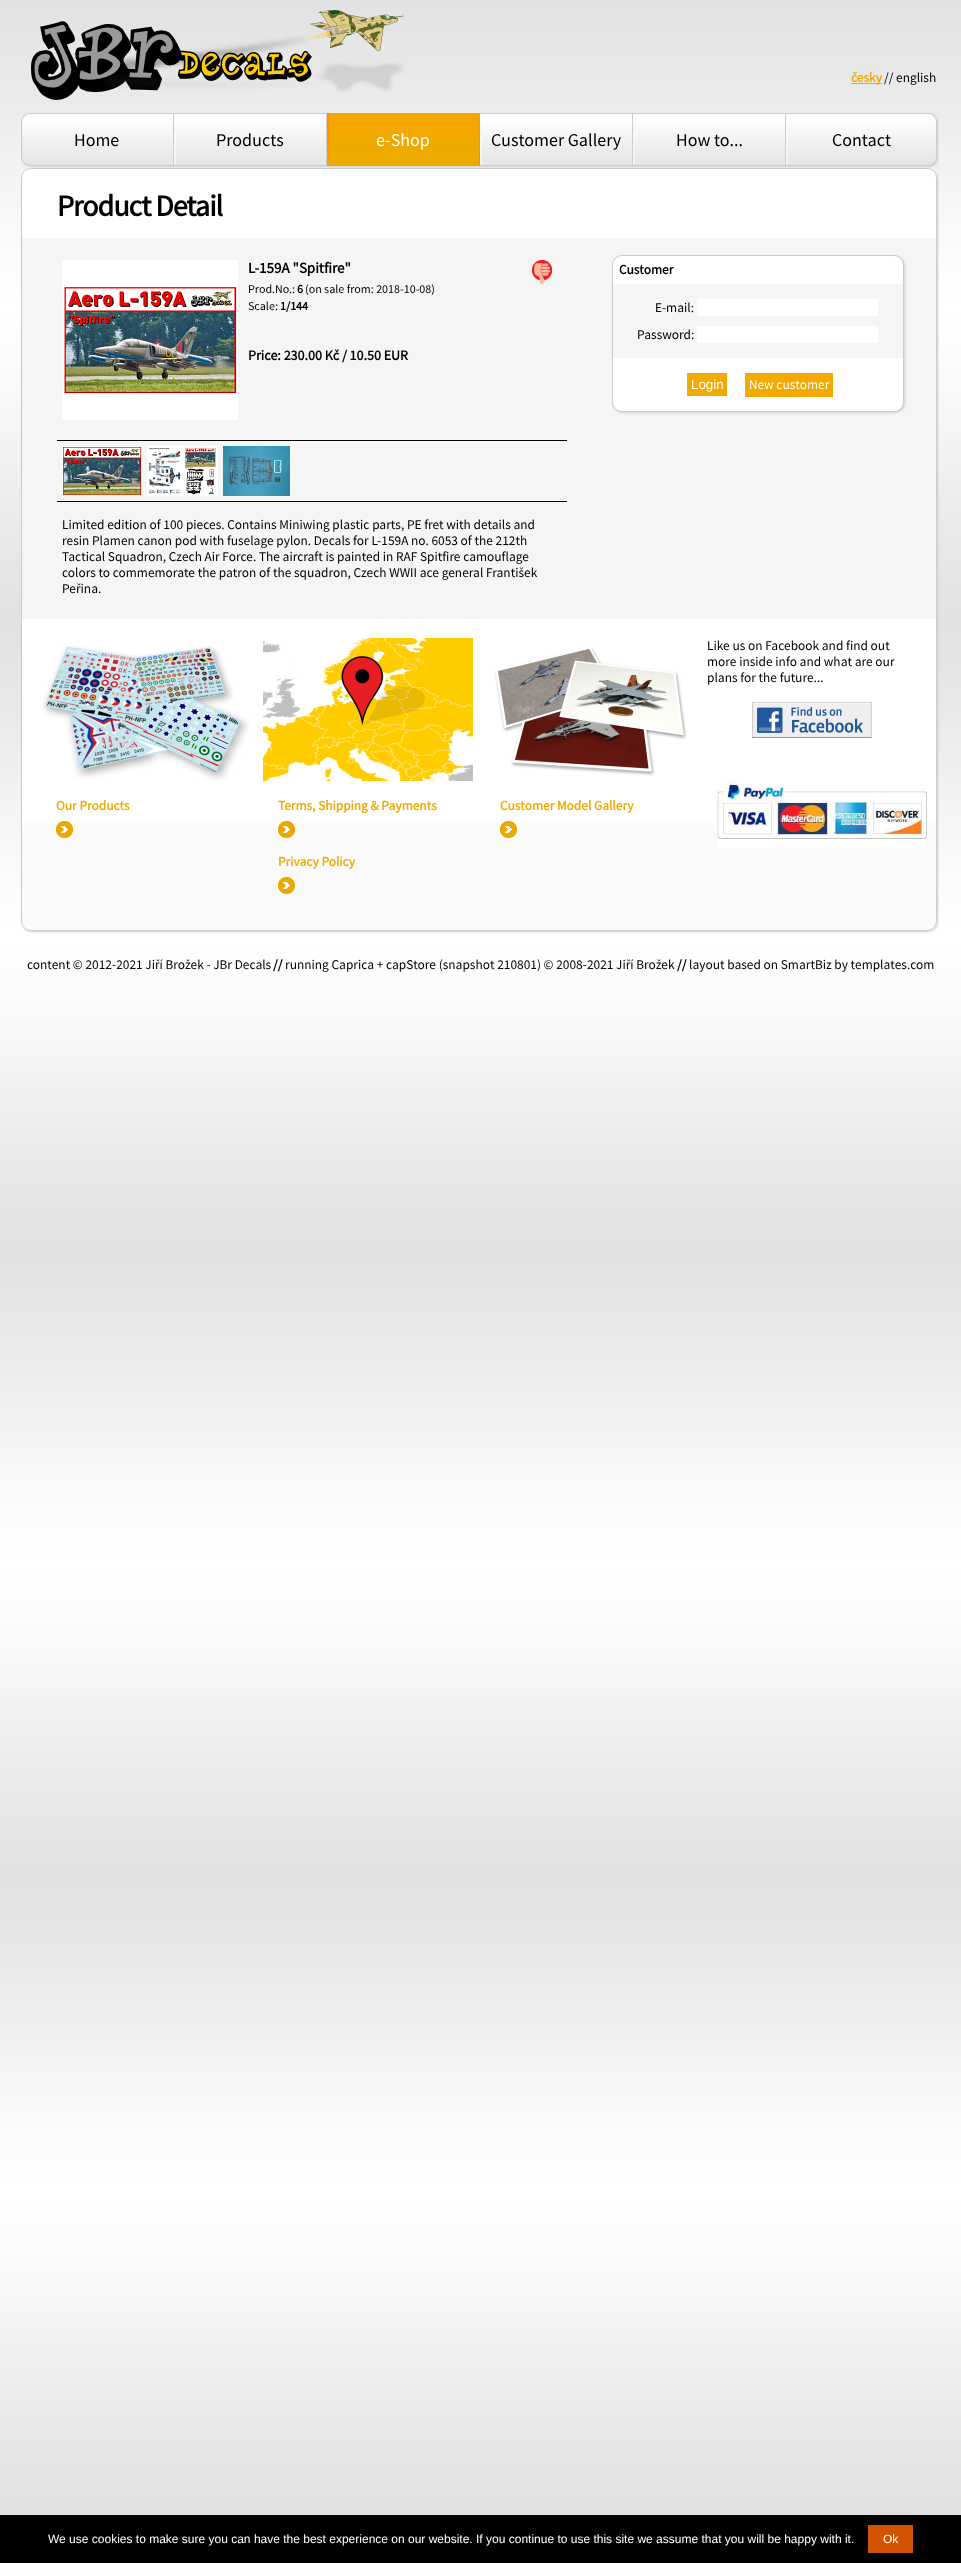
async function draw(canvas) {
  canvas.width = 961
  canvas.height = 2563
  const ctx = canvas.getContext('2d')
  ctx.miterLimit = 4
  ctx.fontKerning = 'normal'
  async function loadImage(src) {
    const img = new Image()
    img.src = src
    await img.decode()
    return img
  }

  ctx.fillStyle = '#fff'
  ctx.fillRect(0, 0, 961, 2563)
  ctx.drawImage(await loadImage('image0.png'), 0, 0, 961, 2515)
  ctx.drawImage(await loadImage('image1.png'), 31, 10, 373, 90)
  ctx.fillStyle = '#f2aa00'
  ctx.fillRect(851, 83, 31, 1)
  ctx.font = 'bold 13.35px Source Sans Pro'
  ctx.fillText('česky', 851, 82)
  ctx.font = '13.35px Source Sans Pro'
  ctx.fillStyle = '#000'
  ctx.fillText('// english', 884, 82)
  ctx.drawImage(await loadImage('image2.png'), 31, 113, 143, 55)
  ctx.drawImage(await loadImage('image3.png'), 21, 113, 10, 55)
  ctx.fillStyle = '#ccc'
  ctx.fillRect(173, 114, 1, 51)
  ctx.font = '18px Source Sans Pro'
  ctx.fillStyle = '#000'
  ctx.fillText('Home', 74, 146)
  ctx.drawImage(await loadImage('image4.png'), 174, 113, 153, 55)
  ctx.drawImage(await loadImage('image5.png'), 174, 133, 2, 32)
  ctx.fillStyle = '#ccc'
  ctx.fillRect(326, 114, 1, 51)
  ctx.fillStyle = '#000'
  ctx.fillText('Products', 216, 146)
  ctx.drawImage(await loadImage('image6.png'), 327, 113, 153, 55)
  ctx.drawImage(await loadImage('image7.png'), 327, 113, 2, 53)
  ctx.drawImage(await loadImage('image8.png'), 479, 113, 1, 53)
  ctx.fillStyle = '#fff'
  ctx.fillText('e-Shop', 376, 146)
  ctx.drawImage(await loadImage('image4.png'), 480, 113, 153, 55)
  ctx.drawImage(await loadImage('image5.png'), 480, 133, 2, 32)
  ctx.fillStyle = '#ccc'
  ctx.fillRect(632, 114, 1, 51)
  ctx.fillStyle = '#000'
  ctx.fillText('Customer Gallery', 491, 146)
  ctx.drawImage(await loadImage('image4.png'), 633, 113, 153, 55)
  ctx.drawImage(await loadImage('image5.png'), 633, 133, 2, 32)
  ctx.fillStyle = '#ccc'
  ctx.fillRect(785, 114, 1, 51)
  ctx.fillStyle = '#000'
  ctx.fillText('How to...', 676, 146)
  ctx.drawImage(await loadImage('image2.png'), 786, 113, 143, 55)
  ctx.drawImage(await loadImage('image5.png'), 786, 133, 2, 32)
  ctx.drawImage(await loadImage('image9.png'), 929, 113, 10, 55)
  ctx.fillText('Contact', 832, 146)
  ctx.fillStyle = '#cfcfcf'
  ctx.filter = 'blur(1px)'
  ctx.beginPath()
  ctx.roundRect(22, 169, 916, 763, 10)
  ctx.fill()
  ctx.filter = 'none'
  ctx.fillStyle = '#fff'
  ctx.beginPath()
  ctx.roundRect(21, 168, 916, 763, 10)
  ctx.fill()
  ctx.drawImage(await loadImage('image10.png'), 21, 823, 916, 107)
  ctx.beginPath()
  ctx.roundRect(21.5, 168.5, 915, 762, 9.5)
  ctx.strokeStyle = '#ccc'
  ctx.stroke()
  ctx.letterSpacing = '-1px'
  ctx.font = 'bold 30px Source Sans Pro'
  ctx.fillStyle = '#000'
  ctx.fillText('Product Detail', 57, 216)
  ctx.fillStyle = '#f5f5f5'
  ctx.fillRect(22, 238, 914, 381)
  ctx.drawImage(await loadImage('image11.png'), 62, 260, 176, 160)
  ctx.letterSpacing = '0px'
  ctx.font = 'bold 15px Source Sans Pro'
  ctx.fillStyle = '#000'
  ctx.fillText('L-159A "Spitfire"', 248, 273)
  ctx.drawImage(await loadImage('image12.png'), 532, 260, 20, 24)
  ctx.font = '12px Source Sans Pro'
  ctx.fillText('Prod.No.:', 248, 293)
  ctx.font = 'bold 12px Source Sans Pro'
  ctx.fillText('6', 297, 293)
  ctx.font = '12px Source Sans Pro'
  ctx.fillText('(on sale from: 2018-10-08)', 305, 293)
  ctx.fillText('Scale:', 248, 310)
  ctx.font = 'bold 12px Source Sans Pro'
  ctx.fillText('1/144', 280, 310)
  ctx.font = 'bold 14px Source Sans Pro'
  ctx.fillText('Price: 230.00 Kč / 10.50 EUR', 248, 360)
  ctx.fillRect(57, 440, 510, 1)
  ctx.fillRect(57, 501, 510, 1)
  ctx.drawImage(await loadImage('image13.png'), 62, 446, 80, 50)
  ctx.drawImage(await loadImage('image14.png'), 147, 446, 71, 50)
  ctx.drawImage(await loadImage('image15.png'), 223, 446, 67, 50)
  ctx.font = '13.35px Source Sans Pro'
  ctx.fillText('Limited edition of 100 pieces. Contains Miniwing plastic parts, PE fret with details and', 62, 529)
  ctx.fillText('resin Plamen canon pod with fuselage pylon. Decals for L-159A no. 6053 of the 212th', 62, 545)
  ctx.fillText('Tactical Squadron, Czech Air Force. The aircraft is painted in RAF Spitfire camouflage', 62, 561)
  ctx.fillText('colors to commemorate the patron of the squadron, Czech WWII ace general František', 62, 577)
  ctx.fillText('Peřina.', 62, 593)
  ctx.fillStyle = '#cfcfcf'
  ctx.filter = 'blur(1px)'
  ctx.beginPath()
  ctx.roundRect(613, 256, 292, 157, 10)
  ctx.fill()
  ctx.filter = 'none'
  ctx.fillStyle = '#fff'
  ctx.beginPath()
  ctx.roundRect(612.5, 255.5, 291, 156, 9.5)
  ctx.fill()
  ctx.stroke()
  ctx.font = 'bold 13.35px Source Sans Pro'
  ctx.fillStyle = '#000'
  ctx.fillText('Customer', 619, 274)
  ctx.fillStyle = '#f5f5f5'
  ctx.fillRect(613, 284, 290, 74)
  ctx.font = '13.35px Source Sans Pro'
  ctx.fillStyle = '#000'
  ctx.fillText('E-mail:', 655, 312)
  ctx.fillStyle = '#fff'
  ctx.fillRect(697, 299, 181, 17)
  ctx.fillStyle = '#000'
  ctx.fillText('Password:', 637, 339)
  ctx.fillStyle = '#fff'
  ctx.fillRect(697, 326, 181, 17)
  ctx.fillStyle = '#f2aa00'
  ctx.fillRect(687, 373, 40, 23)
  ctx.font = '13.35px Liberation Sans'
  ctx.fillStyle = '#fff'
  ctx.fillText('Login', 691, 389)
  ctx.fillStyle = '#f2aa00'
  ctx.fillRect(745, 373, 88, 24)
  ctx.font = '13.35px Source Sans Pro'
  ctx.fillStyle = '#fff'
  ctx.fillText('New customer', 749, 389)
  ctx.fillStyle = '#000'
  ctx.fillText('Like us on Facebook and find out', 707, 650)
  ctx.fillText('more inside info and what are our', 707, 666)
  ctx.fillText('plans for the future...', 707, 682)
  ctx.drawImage(await loadImage('image16.png'), 752, 702, 120, 36)
  ctx.drawImage(await loadImage('image17.png'), 717, 780, 210, 68)
  ctx.drawImage(await loadImage('image18.png'), 42, 646, 207, 134)
  ctx.font = 'bold 13.35px Source Sans Pro'
  ctx.fillStyle = '#f2aa00'
  ctx.fillText('Our Products', 56, 810)
  ctx.drawImage(await loadImage('image19.png'), 56, 821, 17, 17)
  ctx.drawImage(await loadImage('image20.png'), 263, 638, 210, 143)
  ctx.fillText('Terms, Shipping & Payments', 278, 810)
  ctx.drawImage(await loadImage('image19.png'), 278, 821, 17, 17)
  ctx.fillText('Privacy Policy', 278, 866)
  ctx.drawImage(await loadImage('image19.png'), 278, 877, 17, 17)
  ctx.drawImage(await loadImage('image21.png'), 494, 647, 193, 129)
  ctx.fillText('Customer Model Gallery', 500, 810)
  ctx.drawImage(await loadImage('image19.png'), 500, 821, 17, 17)
  ctx.font = '13.35px Source Sans Pro'
  ctx.fillStyle = '#000'
  ctx.fillText('content © 2012-2021 Jiří Brožek - JBr Decals', 27, 969)
  ctx.font = 'bold 13.35px Source Sans Pro'
  ctx.fillText('//', 273, 969)
  ctx.font = '13.35px Source Sans Pro'
  ctx.fillText('running Caprica + capStore (snapshot 210801) © 2008-2021 Jiří Brožek', 285, 969)
  ctx.font = 'bold 13.35px Source Sans Pro'
  ctx.fillText('//', 677, 969)
  ctx.font = '13.35px Source Sans Pro'
  ctx.fillText('layout based on SmartBiz by templates.com', 689, 969)
  ctx.fillRect(0, 2515, 961, 48)
  ctx.font = '12px Liberation Sans'
  ctx.fillStyle = '#fff'
  ctx.fillText('We use cookies to make sure you can have the best experience on our website. If you continue to use this site we assume that you will be happy with it.', 48, 2543)
  ctx.fillStyle = '#d35400'
  ctx.fillRect(868, 2525, 45, 28)
  ctx.fillStyle = '#fff'
  ctx.fillText('Ok', 883, 2543)
}

draw(document.querySelector('canvas'))
